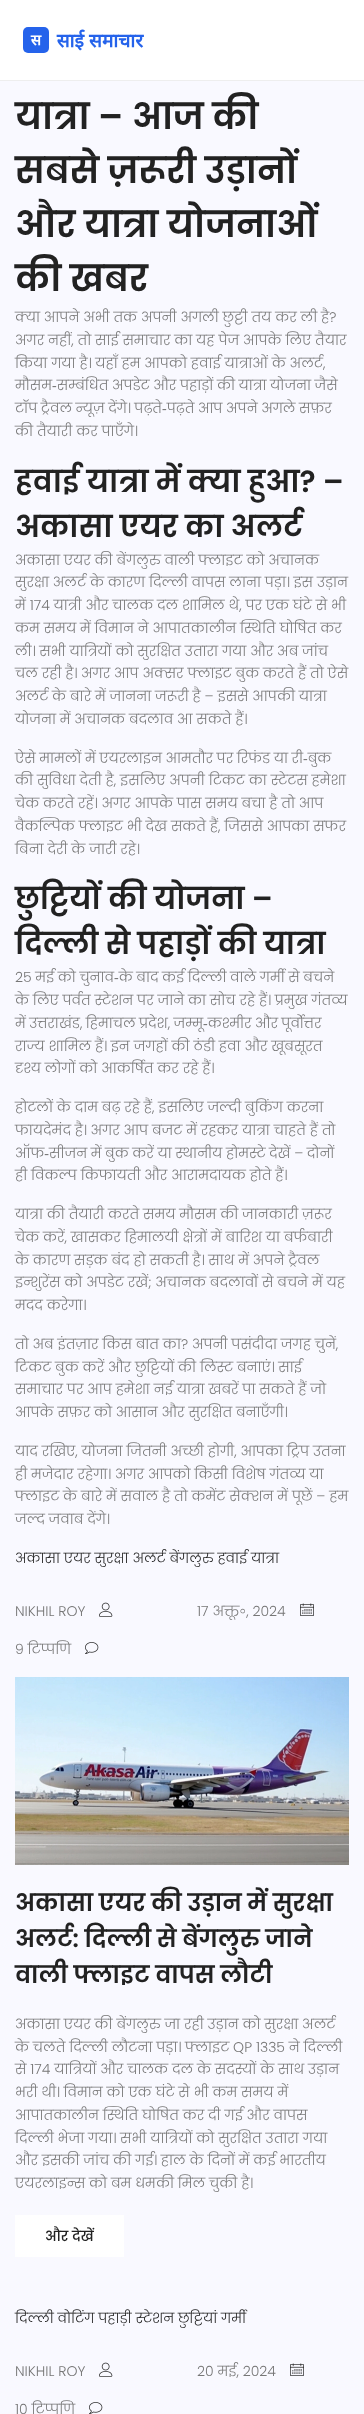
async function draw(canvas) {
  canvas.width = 364
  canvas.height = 2414
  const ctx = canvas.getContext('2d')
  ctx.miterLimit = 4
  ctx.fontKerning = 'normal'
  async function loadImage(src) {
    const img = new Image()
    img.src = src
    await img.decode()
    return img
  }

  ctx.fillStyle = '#f9f9ff'
  ctx.fillRect(0, 0, 364, 2414)
  ctx.fillStyle = '#fff'
  ctx.fillRect(0, 0, 364, 80)
  ctx.fillStyle = '#eee'
  ctx.fillRect(0, 80, 364, 1)
  ctx.drawImage(await loadImage('image0.png'), 23, 27, 121, 26)
  ctx.font = '600 36px Poppins'
  ctx.fillStyle = '#222'
  ctx.fillText('यात्रा – आज की', 15, 129)
  ctx.fillText('सबसे ज़रूरी उड़ानों', 15, 183)
  ctx.fillText('और यात्रा योजनाओं', 15, 237)
  ctx.fillText('की खबर', 15, 291)
  ctx.font = '300 14px Poppins'
  ctx.fillStyle = '#777'
  ctx.fillText('क्या आपने अभी तक अपनी अगली छुट्टी तय कर ली है?', 15, 322)
  ctx.fillText('अगर नहीं, तो साई समाचार का यह पेज आपके लिए तैयार', 15, 345)
  ctx.fillText('किया गया है। यहाँ हम आपको हवाई यात्राओं के अलर्ट,', 15, 368)
  ctx.wordSpacing = '-0.25px'
  ctx.fillText('मौसम‑सम्बंधित अपडेट और पहाड़ों की यात्रा योजना जैसे', 15, 390)
  ctx.fillText('टॉप ट्रैवल न्यूज़ देंगे। पढ़ते‑पढ़ते आप अपने अगले सफ़र', 15, 413)
  ctx.wordSpacing = '0px'
  ctx.fillText('की तैयारी कर पाएँगे।', 15, 436)
  ctx.font = '600 30px Poppins'
  ctx.fillStyle = '#222'
  ctx.fillText('हवाई यात्रा में क्या हुआ? –', 15, 492)
  ctx.fillText('अकासा एयर का अलर्ट', 15, 537)
  ctx.font = '300 14px Poppins'
  ctx.fillStyle = '#777'
  ctx.fillText('अकासा एयर की बेंगलुरु वाली फ्लाइट को अचानक', 15, 565)
  ctx.fillText('सुरक्षा अलर्ट के कारण दिल्ली वापस लाना पड़ा। इस उड़ान', 15, 587)
  ctx.fillText('में 174 यात्री और चालक दल शामिल थे, पर एक घंटे से भी', 15, 610)
  ctx.fillText('कम समय में विमान ने आपातकालीन स्थिति घोषित कर', 15, 633)
  ctx.fillText('ली। सभी यात्रियों को सुरक्षित उतारा गया और अब जांच', 15, 656)
  ctx.fillText('चल रही है। अगर आप अक्सर फ्लाइट बुक करते हैं तो ऐसे', 15, 678)
  ctx.fillText('अलर्ट के बारे में जानना जरूरी है – इससे आपकी यात्रा', 15, 701)
  ctx.fillText('योजना में अचानक बदलाव आ सकते हैं।', 15, 724)
  ctx.wordSpacing = '-0.25px'
  ctx.fillText('ऐसे मामलों में एयरलाइन आमतौर पर रिफंड या री‑बुक', 15, 763)
  ctx.wordSpacing = '0px'
  ctx.fillText('की सुविधा देती है, इसलिए अपनी टिकट का स्टेटस हमेशा', 15, 785)
  ctx.fillText('चेक करते रहें। अगर आपके पास समय बचा है तो आप', 15, 808)
  ctx.fillText('वैकल्पिक फ्लाइट भी देख सकते हैं, जिससे आपका सफर', 15, 831)
  ctx.fillText('बिना देरी के जारी रहे।', 15, 854)
  ctx.font = '600 30px Poppins'
  ctx.fillStyle = '#222'
  ctx.fillText('छुट्टियों की योजना –', 15, 909)
  ctx.fillText('दिल्ली से पहाड़ों की यात्रा', 15, 954)
  ctx.wordSpacing = '-0.25px'
  ctx.font = '300 14px Poppins'
  ctx.fillStyle = '#777'
  ctx.fillText('25 मई को चुनाव‑के बाद कई दिल्ली वाले गर्मी से बचने', 15, 982)
  ctx.wordSpacing = '0px'
  ctx.fillText('के लिए पर्वत स्टेशन पर जाने का सोच रहे हैं। प्रमुख गंतव्य', 15, 1005)
  ctx.wordSpacing = '-0.5px'
  ctx.fillText('में उत्तराखंड, हिमाचल प्रदेश, जम्मू‑कश्मीर और पूर्वोत्तर', 15, 1028)
  ctx.wordSpacing = '0px'
  ctx.fillText('राज्य शामिल हैं। इन जगहों की ठंडी हवा और खूबसूरत', 15, 1051)
  ctx.fillText('दृश्य लोगों को आकर्षित कर रहे हैं।', 15, 1073)
  ctx.fillText('होटलों के दाम बढ़ रहे हैं, इसलिए जल्दी बुकिंग करना', 15, 1112)
  ctx.fillText('फायदेमंद है। अगर आप बजट में रहकर यात्रा चाहते हैं तो', 15, 1135)
  ctx.wordSpacing = '-0.25px'
  ctx.fillText('ऑफ‑सीजन में बुक करें या स्थानीय होमस्टे देखें – दोनों', 15, 1158)
  ctx.wordSpacing = '0px'
  ctx.fillText('ही विकल्प किफायती और आरामदायक होते हैं।', 15, 1180)
  ctx.fillText('यात्रा की तैयारी करते समय मौसम की जानकारी ज़रूर', 15, 1219)
  ctx.fillText('चेक करें, खासकर हिमालयी क्षेत्रों में बारिश या बर्फबारी', 15, 1242)
  ctx.fillText('के कारण सड़क बंद हो सकती है। साथ में अपने ट्रैवल', 15, 1265)
  ctx.fillText('इन्शुरेंस को अपडेट रखें; अचानक बदलावों से बचने में यह', 15, 1287)
  ctx.fillText('मदद करेगा।', 15, 1310)
  ctx.fillText('तो अब इंतज़ार किस बात का? अपनी पसंदीदा जगह चुनें,', 15, 1349)
  ctx.fillText('टिकट बुक करें और छुट्टियों की लिस्ट बनाएं। साई', 15, 1372)
  ctx.fillText('समाचार पर आप हमेशा नई यात्रा खबरें पा सकते हैं जो', 15, 1394)
  ctx.fillText('आपके सफ़र को आसान और सुरक्षित बनाएँगी।', 15, 1417)
  ctx.fillText('याद रखिए, योजना जितनी अच्छी होगी, आपका ट्रिप उतना', 15, 1456)
  ctx.fillText('ही मजेदार रहेगा। अगर आपको किसी विशेष गंतव्य या', 15, 1479)
  ctx.fillText('फ्लाइट के बारे में सवाल है तो कमेंट सेक्शन में पूछें – हम', 15, 1501)
  ctx.fillText('जल्द जवाब देंगे।', 15, 1524)
  ctx.fillStyle = '#222'
  ctx.fillText('अकासा एयर सुरक्षा अलर्ट बेंगलुरु हवाई यात्रा', 15, 1563)
  ctx.fillStyle = '#777'
  ctx.fillText('NIKHIL ROY', 15, 1616)
  ctx.drawImage(await loadImage('image1.png'), 99, 1602, 14, 15)
  ctx.fillText('17 अक्तू॰, 2024', 197, 1616)
  ctx.drawImage(await loadImage('image2.png'), 300, 1603, 14, 13)
  ctx.fillText('9 टिप्पणि', 15, 1654)
  ctx.drawImage(await loadImage('image3.png'), 85, 1642, 14, 12)
  ctx.drawImage(await loadImage('image4.png'), 15, 1677, 334, 188)
  ctx.font = '600 24px Poppins'
  ctx.fillStyle = '#222'
  ctx.fillText('अकासा एयर की उड़ान में सुरक्षा', 15, 1911)
  ctx.fillText('अलर्ट: दिल्ली से बेंगलुरु जाने', 15, 1947)
  ctx.fillText('वाली फ्लाइट वापस लौटी', 15, 1983)
  ctx.font = '300 14px Poppins'
  ctx.fillStyle = '#777'
  ctx.fillText('अकासा एयर की बेंगलुरु जा रही उड़ान को सुरक्षा अलर्ट', 15, 2029)
  ctx.fillText('के चलते दिल्ली लौटना पड़ा। फ्लाइट QP 1335 ने दिल्ली', 15, 2052)
  ctx.fillText('से 174 यात्रियों और चालक दल के सदस्यों के साथ उड़ान', 15, 2074)
  ctx.fillText('भरी थी। विमान को एक घंटे से भी कम समय में', 15, 2097)
  ctx.fillText('आपातकालीन स्थिति घोषित कर दी गई और वापस', 15, 2120)
  ctx.fillText('दिल्ली भेजा गया। सभी यात्रियों को सुरक्षित उतारा गया', 15, 2143)
  ctx.fillText('और इसकी जांच की गई। हाल के दिनों में कई भारतीय', 15, 2165)
  ctx.fillText('एयरलाइन्स को बम धमकी मिल चुकी है।', 15, 2188)
  ctx.fillStyle = '#fff'
  ctx.fillRect(15, 2215, 109, 42)
  ctx.font = '500 14px Poppins'
  ctx.fillStyle = '#222'
  ctx.fillText('और देखें', 45, 2241)
  ctx.font = '300 14px Poppins'
  ctx.fillText('दिल्ली वोटिंग पहाड़ी स्टेशन छुट्टियां गर्मी', 15, 2323)
  ctx.fillStyle = '#777'
  ctx.fillText('NIKHIL ROY', 15, 2376)
  ctx.drawImage(await loadImage('image1.png'), 99, 2362, 14, 15)
  ctx.fillText('20 मई, 2024', 197, 2376)
  ctx.drawImage(await loadImage('image2.png'), 290, 2363, 14, 13)
  ctx.fillText('10 टिप्पणि', 15, 2414)
  ctx.drawImage(await loadImage('image3.png'), 89, 2402, 14, 12)
}

draw(document.querySelector('canvas'))
